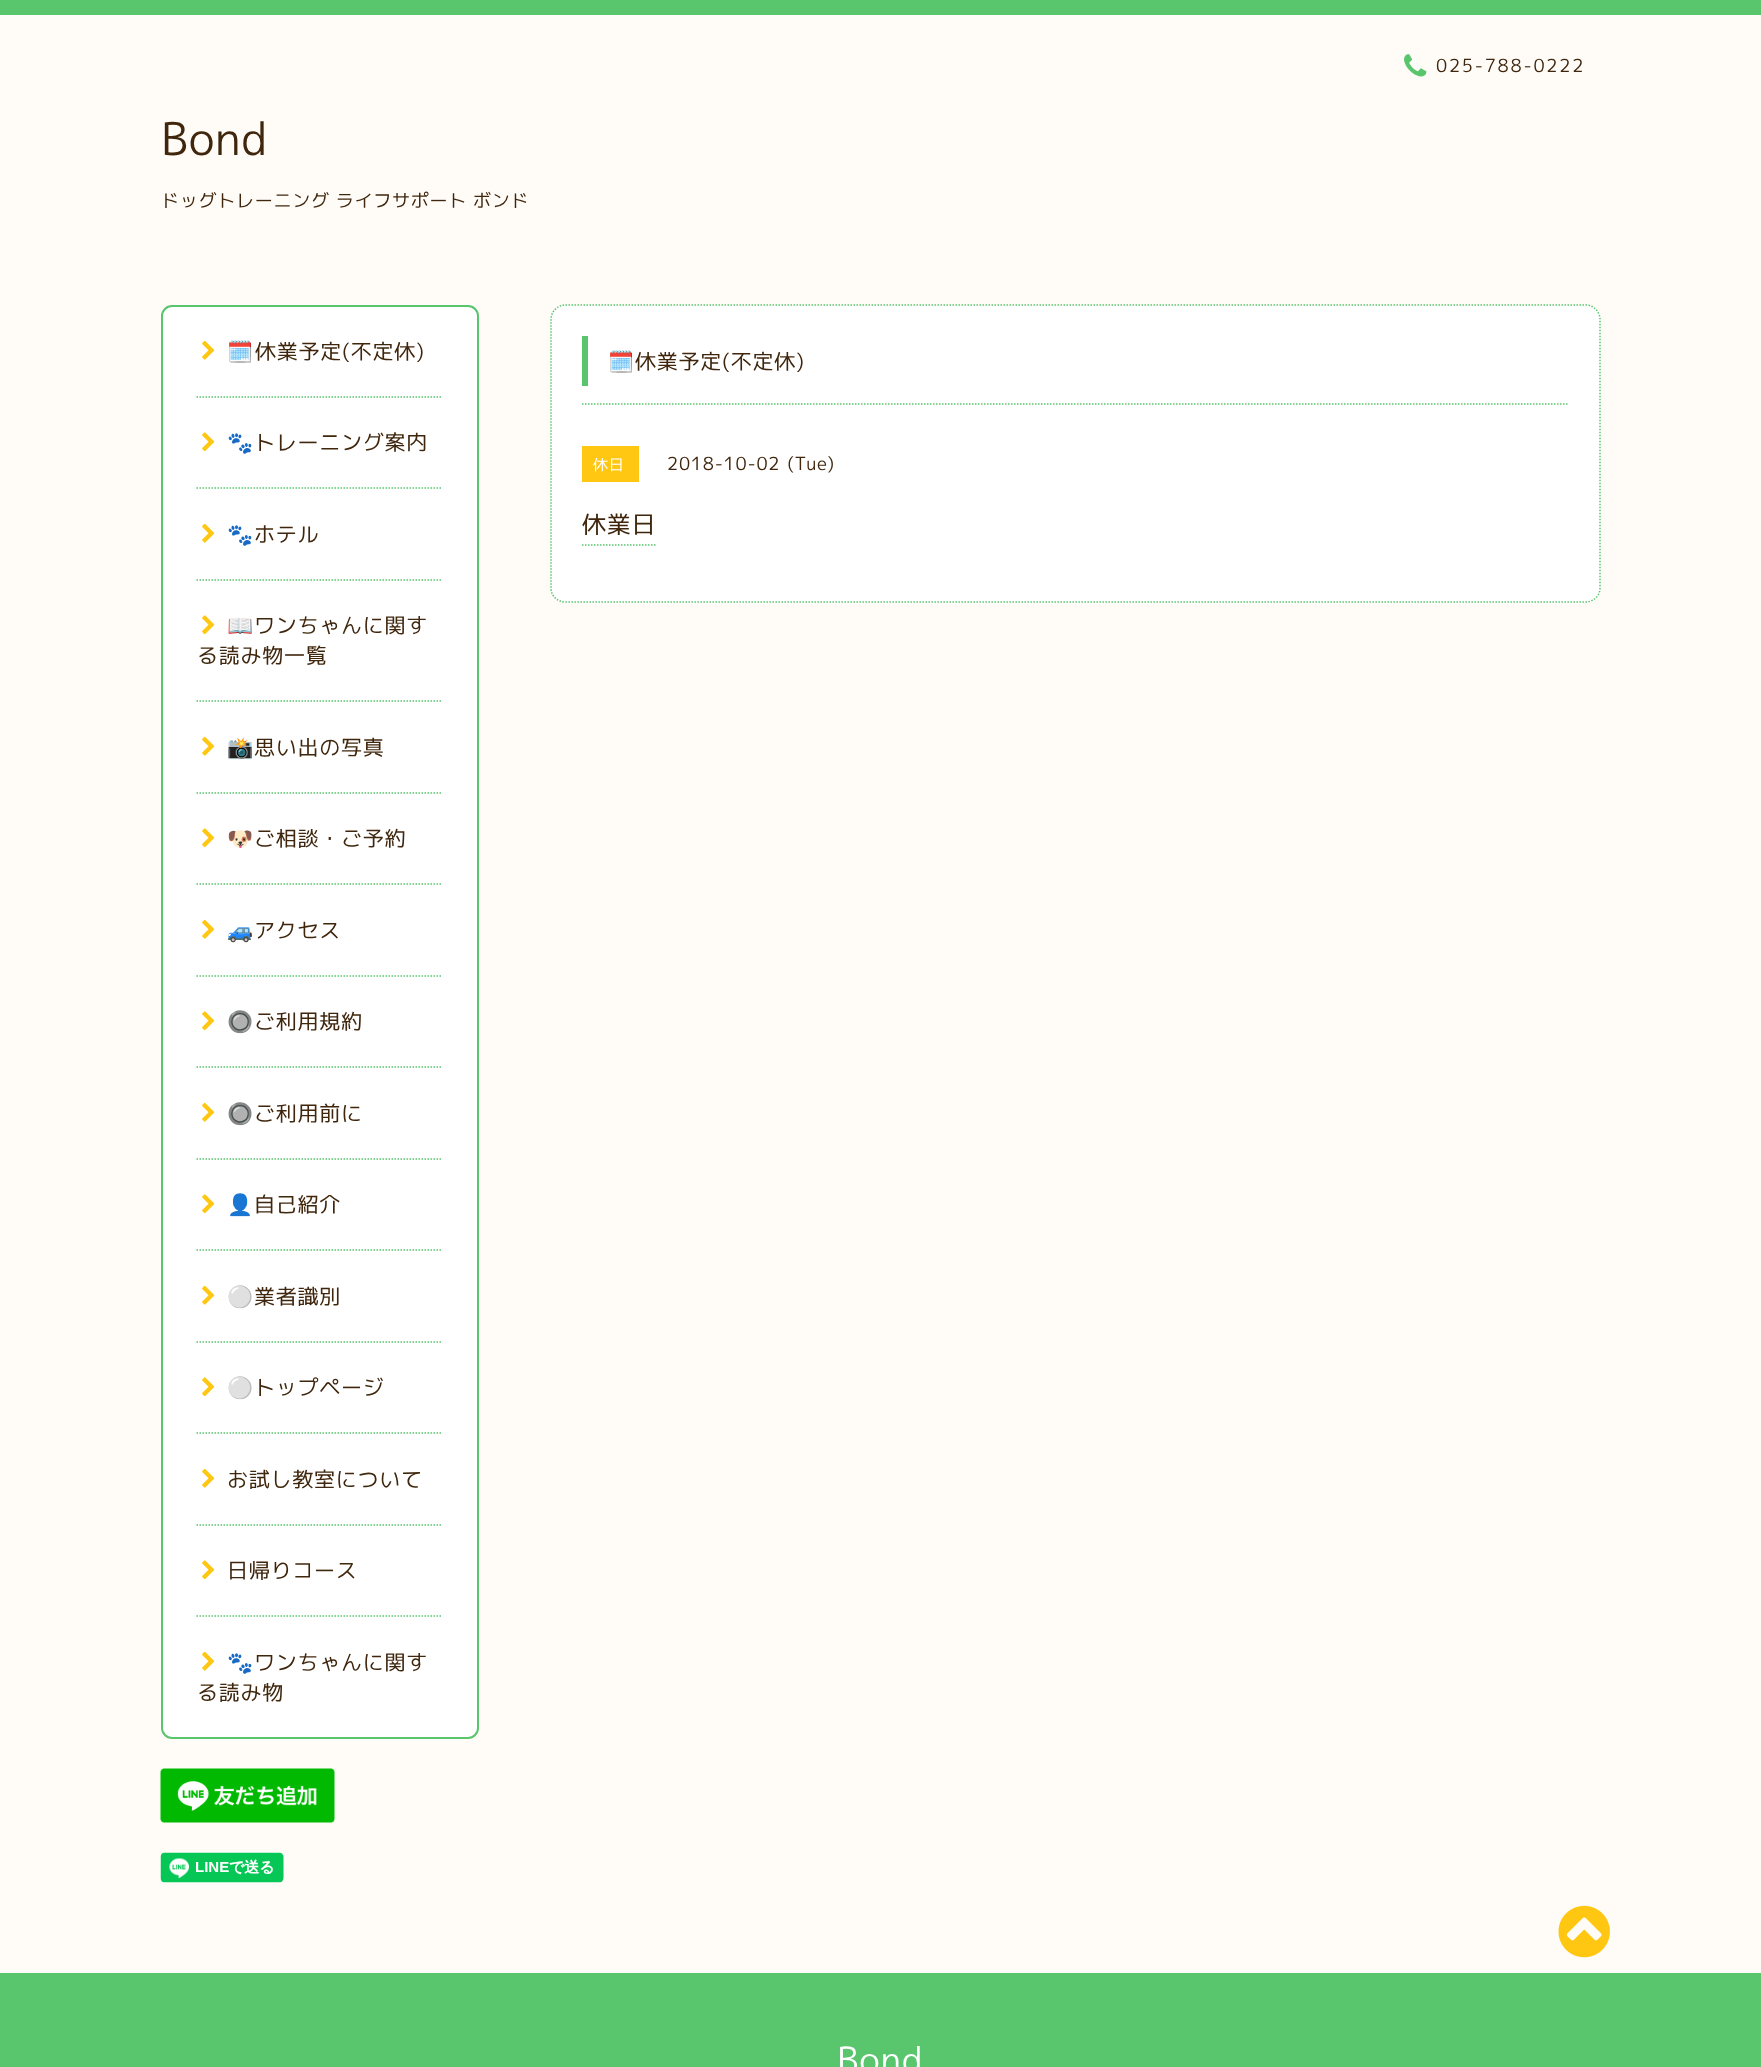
async function draw(canvas) {
  canvas.width = 1761
  canvas.height = 2067
  const ctx = canvas.getContext('2d')
  ctx.miterLimit = 4
  ctx.fontKerning = 'normal'
  async function loadImage(src) {
    const img = new Image()
    img.src = src
    await img.decode()
    return img
  }

  ctx.fillStyle = '#fffcf8'
  ctx.fillRect(0, 0, 1761, 2067)
  ctx.fillStyle = '#59c56d'
  ctx.fillRect(0, 0, 1761, 15)
  ctx.drawImage(await loadImage('image0.png'), 1404, 54, 23, 23)
  ctx.letterSpacing = '1.75px'
  ctx.font = '18px "M PLUS 1p"'
  ctx.fillStyle = '#3f260d'
  ctx.fillText('025-788-0222', 1436, 72)
  ctx.letterSpacing = '0.75px'
  ctx.font = '45px "M PLUS 1p"'
  ctx.fillText('Bond', 161, 155)
  ctx.font = '18px "M PLUS 1p"'
  ctx.fillText('ドッグトレーニング ライフサポート ボンド', 161, 207)
  ctx.fillStyle = '#fff'
  ctx.beginPath()
  ctx.roundRect(162, 306, 316, 1432, 10)
  ctx.fill()
  ctx.strokeStyle = '#59c56d'
  ctx.lineWidth = 2
  ctx.stroke()
  ctx.beginPath()
  ctx.moveTo(196.5, 397)
  ctx.lineTo(442.5, 397)
  ctx.lineWidth = 1.5
  ctx.setLineDash([1.5, 1.5])
  ctx.stroke()
  ctx.drawImage(await loadImage('image1.png'), 202, 340, 13, 20)
  ctx.font = '21px Noto Color Emoji'
  ctx.fillStyle = '#3f260d'
  ctx.fillText('🗓️', 227, 359)
  ctx.font = '21px "M PLUS 1p"'
  ctx.fillText('休業予定(不定休)', 255, 359)
  ctx.beginPath()
  ctx.moveTo(196.5, 488)
  ctx.lineTo(442.5, 488)
  ctx.stroke()
  ctx.drawImage(await loadImage('image2.png'), 202, 432, 13, 20)
  ctx.font = '21px Noto Color Emoji'
  ctx.fillText('🐾', 227, 450)
  ctx.font = '21px "M PLUS 1p"'
  ctx.fillText('トレーニング案内', 254, 450)
  ctx.beginPath()
  ctx.moveTo(196.5, 580)
  ctx.lineTo(442.5, 580)
  ctx.stroke()
  ctx.drawImage(await loadImage('image1.png'), 202, 523, 13, 20)
  ctx.font = '21px Noto Color Emoji'
  ctx.fillText('🐾', 227, 542)
  ctx.font = '21px "M PLUS 1p"'
  ctx.fillText('ホテル', 254, 542)
  ctx.beginPath()
  ctx.moveTo(196.5, 701)
  ctx.lineTo(442.5, 701)
  ctx.stroke()
  ctx.drawImage(await loadImage('image2.png'), 202, 615, 13, 20)
  ctx.font = '21px Noto Color Emoji'
  ctx.fillText('📖', 227, 633)
  ctx.font = '21px "M PLUS 1p"'
  ctx.fillText('ワンちゃんに関す', 254, 633)
  ctx.fillText('る読み物一覧', 197, 663)
  ctx.beginPath()
  ctx.moveTo(196.5, 793)
  ctx.lineTo(442.5, 793)
  ctx.stroke()
  ctx.drawImage(await loadImage('image1.png'), 202, 736, 13, 20)
  ctx.font = '21px Noto Color Emoji'
  ctx.fillText('📸', 227, 755)
  ctx.font = '21px "M PLUS 1p"'
  ctx.fillText('思い出の写真', 254, 755)
  ctx.beginPath()
  ctx.moveTo(196.5, 884)
  ctx.lineTo(442.5, 884)
  ctx.stroke()
  ctx.drawImage(await loadImage('image2.png'), 202, 828, 13, 20)
  ctx.font = '21px Noto Color Emoji'
  ctx.fillText('🐶', 227, 846)
  ctx.font = '21px "M PLUS 1p"'
  ctx.fillText('ご相談・ご予約', 254, 846)
  ctx.beginPath()
  ctx.moveTo(196.5, 976)
  ctx.lineTo(442.5, 976)
  ctx.stroke()
  ctx.drawImage(await loadImage('image1.png'), 202, 919, 13, 20)
  ctx.font = '21px Noto Color Emoji'
  ctx.fillText('🚙', 227, 938)
  ctx.font = '21px "M PLUS 1p"'
  ctx.fillText('アクセス', 254, 938)
  ctx.beginPath()
  ctx.moveTo(196.5, 1067)
  ctx.lineTo(442.5, 1067)
  ctx.stroke()
  ctx.drawImage(await loadImage('image2.png'), 202, 1011, 13, 20)
  ctx.font = '21px Noto Color Emoji'
  ctx.fillText('🔘', 227, 1029)
  ctx.font = '21px "M PLUS 1p"'
  ctx.fillText('ご利用規約', 254, 1029)
  ctx.beginPath()
  ctx.moveTo(196.5, 1159)
  ctx.lineTo(442.5, 1159)
  ctx.stroke()
  ctx.drawImage(await loadImage('image1.png'), 202, 1102, 13, 20)
  ctx.font = '21px Noto Color Emoji'
  ctx.fillText('🔘', 227, 1121)
  ctx.font = '21px "M PLUS 1p"'
  ctx.fillText('ご利用前に', 254, 1121)
  ctx.beginPath()
  ctx.moveTo(196.5, 1250)
  ctx.lineTo(442.5, 1250)
  ctx.stroke()
  ctx.drawImage(await loadImage('image2.png'), 202, 1194, 13, 20)
  ctx.font = '21px Noto Color Emoji'
  ctx.fillText('👤', 227, 1212)
  ctx.font = '21px "M PLUS 1p"'
  ctx.fillText('自己紹介', 254, 1212)
  ctx.beginPath()
  ctx.moveTo(196.5, 1342)
  ctx.lineTo(442.5, 1342)
  ctx.stroke()
  ctx.drawImage(await loadImage('image1.png'), 202, 1285, 13, 20)
  ctx.font = '21px Noto Color Emoji'
  ctx.fillText('⚪', 227, 1304)
  ctx.font = '21px "M PLUS 1p"'
  ctx.fillText('業者識別', 254, 1304)
  ctx.beginPath()
  ctx.moveTo(196.5, 1433)
  ctx.lineTo(442.5, 1433)
  ctx.stroke()
  ctx.drawImage(await loadImage('image2.png'), 202, 1377, 13, 20)
  ctx.font = '21px Noto Color Emoji'
  ctx.fillText('⚪', 227, 1395)
  ctx.font = '21px "M PLUS 1p"'
  ctx.fillText('トップページ', 254, 1395)
  ctx.beginPath()
  ctx.moveTo(196.5, 1525)
  ctx.lineTo(442.5, 1525)
  ctx.stroke()
  ctx.drawImage(await loadImage('image1.png'), 202, 1468, 13, 20)
  ctx.fillText('お試し教室について', 227, 1487)
  ctx.beginPath()
  ctx.moveTo(196.5, 1616)
  ctx.lineTo(442.5, 1616)
  ctx.stroke()
  ctx.drawImage(await loadImage('image2.png'), 202, 1560, 13, 20)
  ctx.fillText('日帰りコース', 227, 1578)
  ctx.drawImage(await loadImage('image1.png'), 202, 1651, 13, 20)
  ctx.font = '21px Noto Color Emoji'
  ctx.fillText('🐾', 227, 1670)
  ctx.font = '21px "M PLUS 1p"'
  ctx.fillText('ワンちゃんに関す', 254, 1670)
  ctx.fillText('る読み物', 197, 1700)
  ctx.drawImage(await loadImage('image3.png'), 160, 1768, 175, 55)
  ctx.drawImage(await loadImage('image4.png'), 160, 1852, 124, 31)
  ctx.fillStyle = '#fff'
  ctx.beginPath()
  ctx.roundRect(551, 305, 1050, 298, 15)
  ctx.fill()
  ctx.beginPath()
  ctx.moveTo(565.5, 305)
  ctx.lineTo(1585.5, 305)
  ctx.bezierCurveTo(1593.5, 305, 1600, 311.5, 1600, 319.5)
  ctx.lineTo(1600, 588)
  ctx.bezierCurveTo(1600, 596, 1593.5, 602, 1585.5, 602)
  ctx.lineTo(565.5, 602)
  ctx.bezierCurveTo(557.5, 602, 551, 596, 551, 588)
  ctx.lineTo(551, 319.5)
  ctx.bezierCurveTo(551, 311.5, 557.5, 305, 565.5, 305)
  ctx.closePath()
  ctx.stroke()
  ctx.fillStyle = '#59c56d'
  ctx.fillRect(582, 336, 6, 50)
  ctx.font = '21px Noto Color Emoji'
  ctx.fillStyle = '#3f260d'
  ctx.fillText('🗓️', 608, 369)
  ctx.font = '21px "M PLUS 1p"'
  ctx.fillText('休業予定(不定休)', 635, 369)
  ctx.beginPath()
  ctx.moveTo(582, 404)
  ctx.lineTo(1569, 404)
  ctx.stroke()
  ctx.fillStyle = '#ffc612'
  ctx.fillRect(582, 446, 57, 36)
  ctx.font = '15px "M PLUS 1p"'
  ctx.fillStyle = '#fff'
  ctx.fillText('休日', 593, 470)
  ctx.wordSpacing = '1px'
  ctx.font = '18px "M PLUS 1p"'
  ctx.fillStyle = '#3f260d'
  ctx.fillText('2018-10-02 (Tue)', 667, 470)
  ctx.wordSpacing = '0px'
  ctx.font = '24px "M PLUS 1p"'
  ctx.fillText('休業日', 582, 533)
  ctx.beginPath()
  ctx.moveTo(582, 545)
  ctx.lineTo(657, 545)
  ctx.stroke()
  ctx.drawImage(await loadImage('image5.png'), 1558, 1905, 52, 53)
  ctx.fillStyle = '#59c56d'
  ctx.fillRect(0, 1973, 1761, 94)
  ctx.font = '36px "M PLUS 1p"'
  ctx.fillStyle = '#fff'
  ctx.fillText('Bond', 837, 2073)
}

draw(document.querySelector('canvas'))
